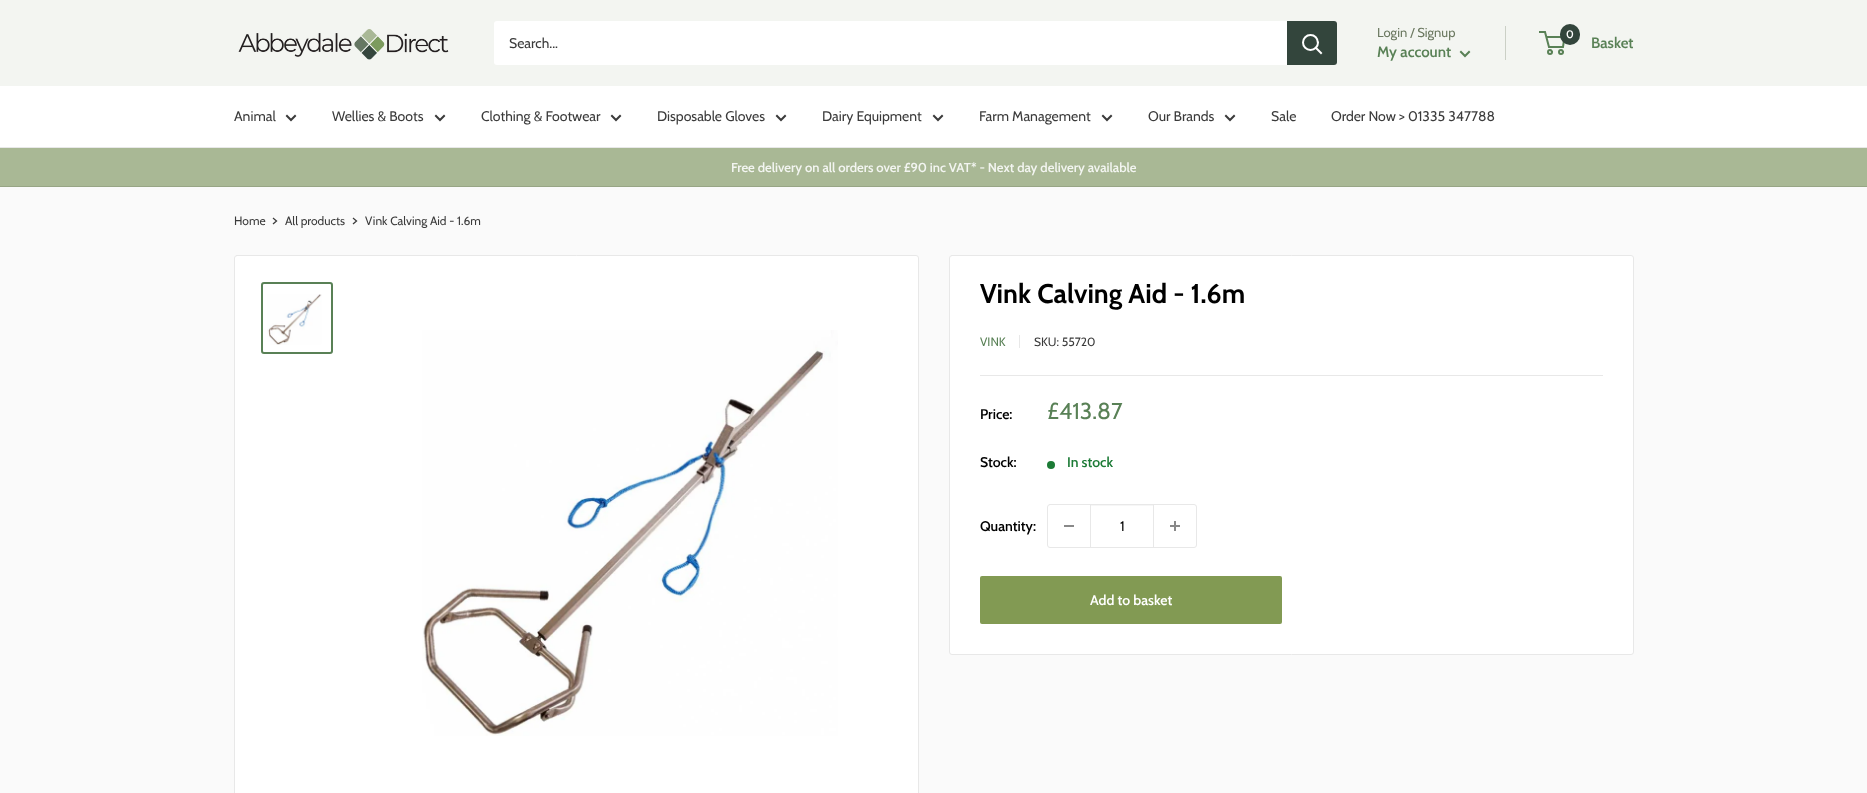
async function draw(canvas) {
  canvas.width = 1867
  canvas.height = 793
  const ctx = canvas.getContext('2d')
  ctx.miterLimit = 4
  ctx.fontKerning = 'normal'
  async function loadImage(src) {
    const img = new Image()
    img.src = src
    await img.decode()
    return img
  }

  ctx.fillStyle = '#fafafa'
  ctx.fillRect(0, 0, 1867, 793)
  ctx.fillStyle = '#f3f5f1'
  ctx.fillRect(0, 0, 1867, 86)
  ctx.drawImage(await loadImage('image0.png'), 238, 29, 211, 31)
  ctx.fillStyle = '#fff'
  ctx.beginPath()
  ctx.roundRect(494, 21, 843, 44, 3)
  ctx.fill()
  ctx.font = '14px Cabin'
  ctx.fillStyle = '#3b3b3b'
  ctx.fillText('Search...', 509, 48)
  ctx.fillStyle = '#33453c'
  ctx.beginPath()
  ctx.roundRect(1287, 21, 50, 44, [0, 3, 3, 0])
  ctx.fill()
  ctx.beginPath()
  ctx.moveTo(1321, 53)
  ctx.lineTo(1316, 48)
  ctx.strokeStyle = '#fff'
  ctx.lineWidth = 2
  ctx.lineCap = 'square'
  ctx.stroke()
  ctx.beginPath()
  ctx.arc(1310.5, 42.5, 7.5, 0, 2 * Math.PI)
  ctx.stroke()
  ctx.font = '13px Cabin'
  ctx.fillStyle = '#6c7961'
  ctx.fillText('Login / Signup', 1377, 37)
  ctx.fillStyle = '#cbd0c6'
  ctx.fillRect(1505, 26, 1, 34)
  ctx.font = '600 15px Cabin'
  ctx.fillStyle = '#598156'
  ctx.fillText('My account', 1377, 57)
  ctx.beginPath()
  ctx.moveTo(1469, 52)
  ctx.lineTo(1465, 56)
  ctx.lineTo(1461, 52)
  ctx.strokeStyle = '#598156'
  ctx.stroke()
  ctx.beginPath()
  ctx.arc(1550, 52, 2, 0, 2 * Math.PI)
  ctx.stroke()
  ctx.beginPath()
  ctx.arc(1561, 52, 2, 0, 2 * Math.PI)
  ctx.stroke()
  ctx.beginPath()
  ctx.moveTo(1546.5, 37)
  ctx.lineTo(1564.5, 37)
  ctx.lineTo(1563, 47)
  ctx.lineTo(1549, 47)
  ctx.lineTo(1545, 32)
  ctx.lineTo(1539, 32)
  ctx.lineCap = 'butt'
  ctx.stroke()
  ctx.fillStyle = '#33453c'
  ctx.beginPath()
  ctx.roundRect(1560, 24, 20, 21, 10)
  ctx.fill()
  ctx.font = '600 11px Cabin'
  ctx.fillStyle = '#fff'
  ctx.fillText('0', 1566, 38)
  ctx.font = '600 15px Cabin'
  ctx.fillStyle = '#598156'
  ctx.fillText('Basket', 1591, 48)
  ctx.fillStyle = '#fff'
  ctx.fillRect(0, 86, 1867, 61)
  ctx.fillStyle = '#e8e8e8'
  ctx.fillRect(0, 147, 1867, 1)
  ctx.font = '14px Cabin'
  ctx.fillStyle = '#3b3b3b'
  ctx.fillText('Animal', 234, 121)
  ctx.beginPath()
  ctx.moveTo(295, 116)
  ctx.lineTo(291, 120)
  ctx.lineTo(287, 116)
  ctx.strokeStyle = '#3b3b3b'
  ctx.lineCap = 'square'
  ctx.stroke()
  ctx.fillText('Wellies & Boots', 332, 121)
  ctx.beginPath()
  ctx.moveTo(444, 116)
  ctx.lineTo(440, 120)
  ctx.lineTo(436, 116)
  ctx.stroke()
  ctx.fillText('Clothing & Footwear', 481, 121)
  ctx.beginPath()
  ctx.moveTo(620, 116)
  ctx.lineTo(616, 120)
  ctx.lineTo(612, 116)
  ctx.stroke()
  ctx.fillText('Disposable Gloves', 657, 121)
  ctx.beginPath()
  ctx.moveTo(785, 116)
  ctx.lineTo(781, 120)
  ctx.lineTo(777, 116)
  ctx.stroke()
  ctx.fillText('Dairy Equipment', 822, 121)
  ctx.beginPath()
  ctx.moveTo(942, 116)
  ctx.lineTo(938, 120)
  ctx.lineTo(934, 116)
  ctx.stroke()
  ctx.fillText('Farm Management', 979, 121)
  ctx.beginPath()
  ctx.moveTo(1111, 116)
  ctx.lineTo(1107, 120)
  ctx.lineTo(1103, 116)
  ctx.stroke()
  ctx.fillText('Our Brands', 1148, 121)
  ctx.beginPath()
  ctx.moveTo(1234, 116)
  ctx.lineTo(1230, 120)
  ctx.lineTo(1226, 116)
  ctx.stroke()
  ctx.fillText('Sale', 1271, 121)
  ctx.fillText('Order Now > 01335 347788', 1331, 121)
  ctx.fillStyle = '#a9b895'
  ctx.fillRect(0, 148, 1867, 38)
  ctx.fillStyle = '#97a585'
  ctx.fillRect(0, 186, 1867, 1)
  ctx.font = '600 13px Cabin'
  ctx.fillStyle = '#f3f5f1'
  ctx.fillText('Free delivery on all orders over £90 inc VAT* - Next day delivery available', 731, 172)
  ctx.font = '12px Cabin'
  ctx.fillStyle = '#3b3b3b'
  ctx.fillText('Home', 234, 225)
  ctx.beginPath()
  ctx.moveTo(273.5, 218.5)
  ctx.lineTo(276.5, 221)
  ctx.lineTo(273.5, 223.5)
  ctx.lineWidth = 1.3
  ctx.stroke()
  ctx.fillText('All products', 285, 225)
  ctx.beginPath()
  ctx.moveTo(353.5, 218.5)
  ctx.lineTo(356.5, 221)
  ctx.lineTo(353.5, 223.5)
  ctx.stroke()
  ctx.fillText('Vink Calving Aid - 1.6m', 365, 225)
  ctx.fillStyle = '#fff'
  ctx.beginPath()
  ctx.roundRect(234.5, 255.5, 684, 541, 2.5)
  ctx.fill()
  ctx.strokeStyle = '#e8e8e8'
  ctx.lineWidth = 1
  ctx.stroke()
  ctx.beginPath()
  ctx.roundRect(262, 283, 70, 70, 2)
  ctx.strokeStyle = '#598156'
  ctx.lineWidth = 2
  ctx.stroke()
  ctx.drawImage(await loadImage('image1.png'), 267, 294, 55, 51)
  ctx.drawImage(await loadImage('image2.png'), 422, 330, 416, 406)
  ctx.beginPath()
  ctx.roundRect(949.5, 255.5, 684, 399, 2.5)
  ctx.fill()
  ctx.strokeStyle = '#e8e8e8'
  ctx.lineWidth = 1
  ctx.stroke()
  ctx.font = 'bold 27px Cabin'
  ctx.fillStyle = '#000'
  ctx.fillText('Vink Calving Aid - 1.6m', 980, 303)
  ctx.font = '12px Cabin'
  ctx.fillStyle = '#598156'
  ctx.fillText('VINK', 980, 346)
  ctx.fillStyle = '#e8e8e8'
  ctx.fillRect(1019, 335, 1, 13)
  ctx.fillStyle = '#3b3b3b'
  ctx.fillText('SKU: 55720', 1034, 346)
  ctx.fillStyle = '#e8e8e8'
  ctx.fillRect(980, 375, 623, 1)
  ctx.font = '600 14px Cabin'
  ctx.fillStyle = '#000'
  ctx.fillText('Price:', 980, 419)
  ctx.font = '23px Cabin'
  ctx.fillStyle = '#598156'
  ctx.fillText('£413.87', 1047, 419)
  ctx.font = '600 14px Cabin'
  ctx.fillStyle = '#000'
  ctx.fillText('Stock:', 980, 467)
  ctx.fillStyle = '#1c7b36'
  ctx.beginPath()
  ctx.arc(1051, 465, 4, 0, 2 * Math.PI)
  ctx.fill()
  ctx.fillText('In stock', 1067, 467)
  ctx.fillStyle = '#000'
  ctx.fillText('Quantity:', 980, 531)
  ctx.beginPath()
  ctx.roundRect(1047.5, 504.5, 149, 43, 2.5)
  ctx.stroke()
  ctx.fillStyle = '#898989'
  ctx.fillRect(1064, 525, 10, 2)
  ctx.fillStyle = '#f6f6f6'
  ctx.fillRect(1091, 505, 62, 1)
  ctx.fillStyle = '#e8e8e8'
  ctx.fillRect(1153, 505, 1, 42)
  ctx.fillRect(1090, 505, 1, 42)
  ctx.font = '14px Cabin'
  ctx.fillStyle = '#000'
  ctx.fillText('1', 1120, 531)
  ctx.drawImage(await loadImage('image3.png'), 1170, 521, 10, 10)
  ctx.fillStyle = '#829a53'
  ctx.beginPath()
  ctx.roundRect(980, 576, 302, 48, 2)
  ctx.fill()
  ctx.font = '600 14px Cabin'
  ctx.fillStyle = '#fff'
  ctx.fillText('Add to basket', 1090, 605)
}

draw(document.querySelector('canvas'))
